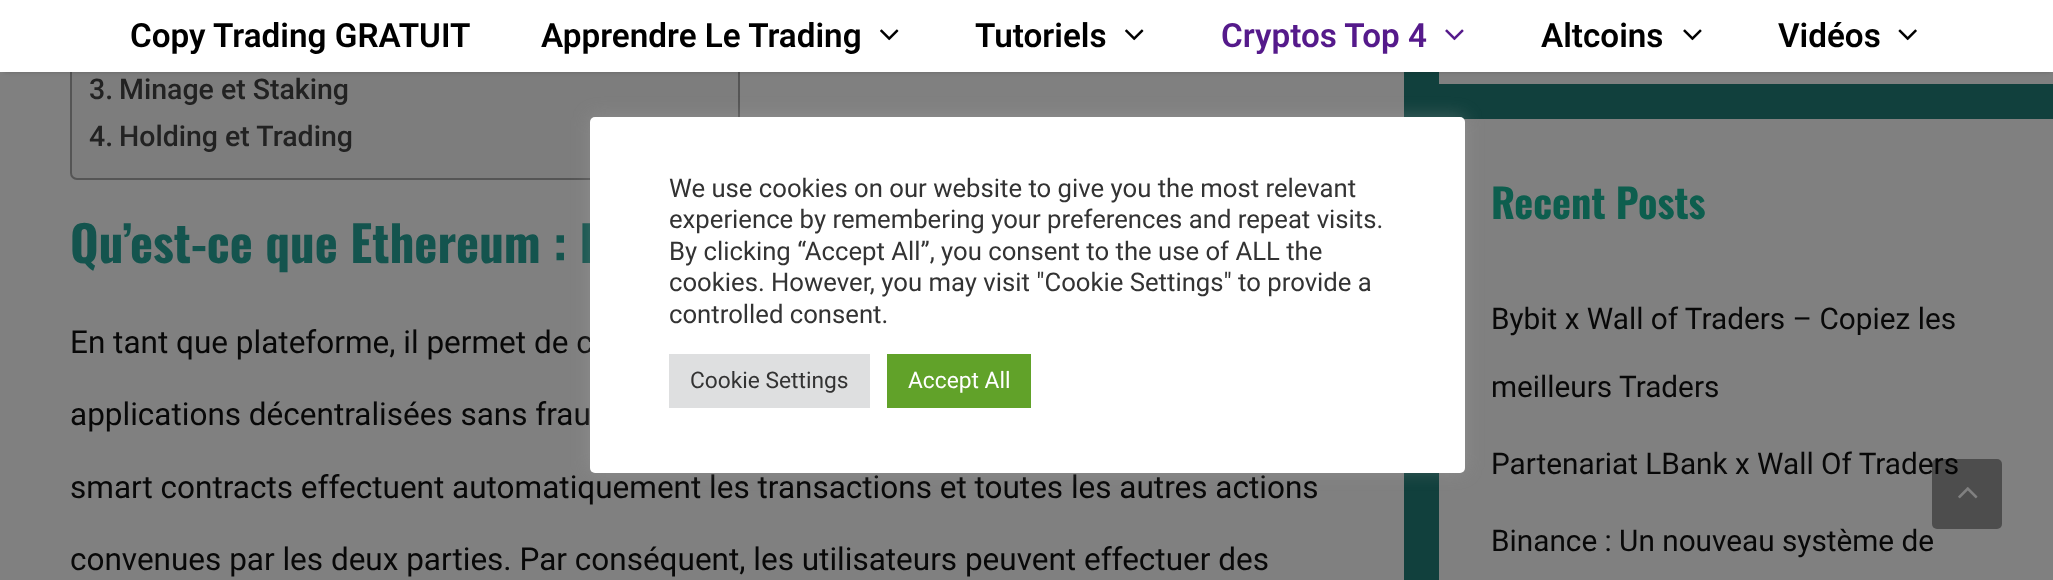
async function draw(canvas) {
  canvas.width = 2053
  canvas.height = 580
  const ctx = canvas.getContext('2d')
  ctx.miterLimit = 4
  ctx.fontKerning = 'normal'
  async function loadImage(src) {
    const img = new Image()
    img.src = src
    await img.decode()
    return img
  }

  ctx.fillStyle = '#11403d'
  ctx.fillRect(0, 0, 2053, 580)
  ctx.fillStyle = '#808080'
  ctx.fillRect(0, 72, 1404, 508)
  ctx.fillStyle = '#7d7d7d'
  ctx.beginPath()
  ctx.roundRect(71, -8, 668, 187, 6)
  ctx.fill()
  ctx.strokeStyle = '#555'
  ctx.lineWidth = 2
  ctx.stroke()
  ctx.fillStyle = '#808080'
  ctx.fillRect(1439, 72, 614, 12)
  ctx.fillStyle = '#00000033'
  ctx.filter = 'blur(2px)'
  ctx.beginPath()
  ctx.rect(4, 7, 2047, 65)
  ctx.fill()
  ctx.filter = 'none'
  ctx.fillStyle = '#fff'
  ctx.fillRect(0, 0, 2053, 72)
  ctx.font = '600 33.25px Roboto'
  ctx.fillStyle = '#000'
  ctx.fillText('Copy Trading GRATUIT', 130, 47)
  ctx.fillText('Apprendre Le Trading', 541, 47)
  ctx.drawImage(await loadImage('image0.png'), 880, 29, 19, 12)
  ctx.fillText('Tutoriels', 975, 47)
  ctx.drawImage(await loadImage('image0.png'), 1125, 29, 19, 12)
  ctx.fillStyle = '#551a8b'
  ctx.fillText('Cryptos Top 4', 1221, 47)
  ctx.drawImage(await loadImage('image1.png'), 1445, 29, 19, 12)
  ctx.fillStyle = '#000'
  ctx.fillText('Altcoins', 1541, 47)
  ctx.drawImage(await loadImage('image2.png'), 1683, 29, 19, 12)
  ctx.fillText('Vidéos', 1778, 47)
  ctx.drawImage(await loadImage('image3.png'), 1898, 29, 19, 12)
  ctx.font = '500 28.5px Roboto'
  ctx.fillStyle = '#222'
  ctx.fillText('3.', 89, 99)
  ctx.fillText('Minage et Staking', 119, 99)
  ctx.fillText('4.', 89, 146)
  ctx.fillText('Holding et Trading', 119, 146)
  ctx.font = 'bold 49px Oswald'
  ctx.fillStyle = '#14544e'
  ctx.fillText('Qu’est-ce que Ethereum : L', 70, 263)
  ctx.font = '31.5px Roboto'
  ctx.fillStyle = '#080808'
  ctx.fillText('En tant que plateforme, il permet de c', 70, 353)
  ctx.fillText('applications décentralisées sans frau', 70, 425)
  ctx.fillText('smart contracts effectuent automatiquement les transactions et toutes les autres actions', 70, 498)
  ctx.fillText('convenues par les deux parties. Par conséquent, les utilisateurs peuvent effectuer des', 70, 570)
  ctx.fillStyle = '#808080'
  ctx.fillRect(1439, 119, 614, 461)
  ctx.font = 'bold 40.25px Oswald'
  ctx.fillStyle = '#0d5e4e'
  ctx.fillText('Recent Posts', 1491, 219)
  ctx.font = '29.75px Roboto'
  ctx.fillStyle = '#080808'
  ctx.fillText('Bybit x Wall of Traders – Copiez les', 1491, 329)
  ctx.fillText('meilleurs Traders', 1491, 397)
  ctx.fillText('Partenariat LBank x Wall Of Traders', 1491, 474)
  ctx.fillText('Binance : Un nouveau système de', 1491, 551)
  ctx.fillStyle = '#acabab4d'
  ctx.filter = 'blur(9px)'
  ctx.beginPath()
  ctx.roundRect(590, 116, 875, 355, 5)
  ctx.fill()
  ctx.filter = 'none'
  ctx.fillStyle = '#fff'
  ctx.beginPath()
  ctx.roundRect(590, 117, 875, 356, 5)
  ctx.fill()
  ctx.font = '25.7px Roboto'
  ctx.fillStyle = '#333'
  ctx.fillText('We use cookies on our website to give you the most relevant', 669, 197)
  ctx.fillText('experience by remembering your preferences and repeat visits.', 669, 228)
  ctx.fillText('By clicking “Accept All”, you consent to the use of ALL the', 669, 260)
  ctx.fillText('cookies. However, you may visit "Cookie Settings" to provide a', 669, 291)
  ctx.fillText('controlled consent.', 669, 323)
  ctx.fillStyle = '#dedfe0'
  ctx.fillRect(669, 354, 201, 54)
  ctx.font = '22.75px Roboto'
  ctx.fillStyle = '#333'
  ctx.fillText('Cookie Settings', 690, 388)
  ctx.fillStyle = '#61a229'
  ctx.fillRect(887, 354, 144, 54)
  ctx.fillStyle = '#fff'
  ctx.fillText('Accept All', 908, 388)
  ctx.fillStyle = '#00000066'
  ctx.beginPath()
  ctx.roundRect(1932, 459, 70, 70, 5)
  ctx.fill()
  ctx.drawImage(await loadImage('image4.png'), 1958, 487, 20, 12)
}

draw(document.querySelector('canvas'))
